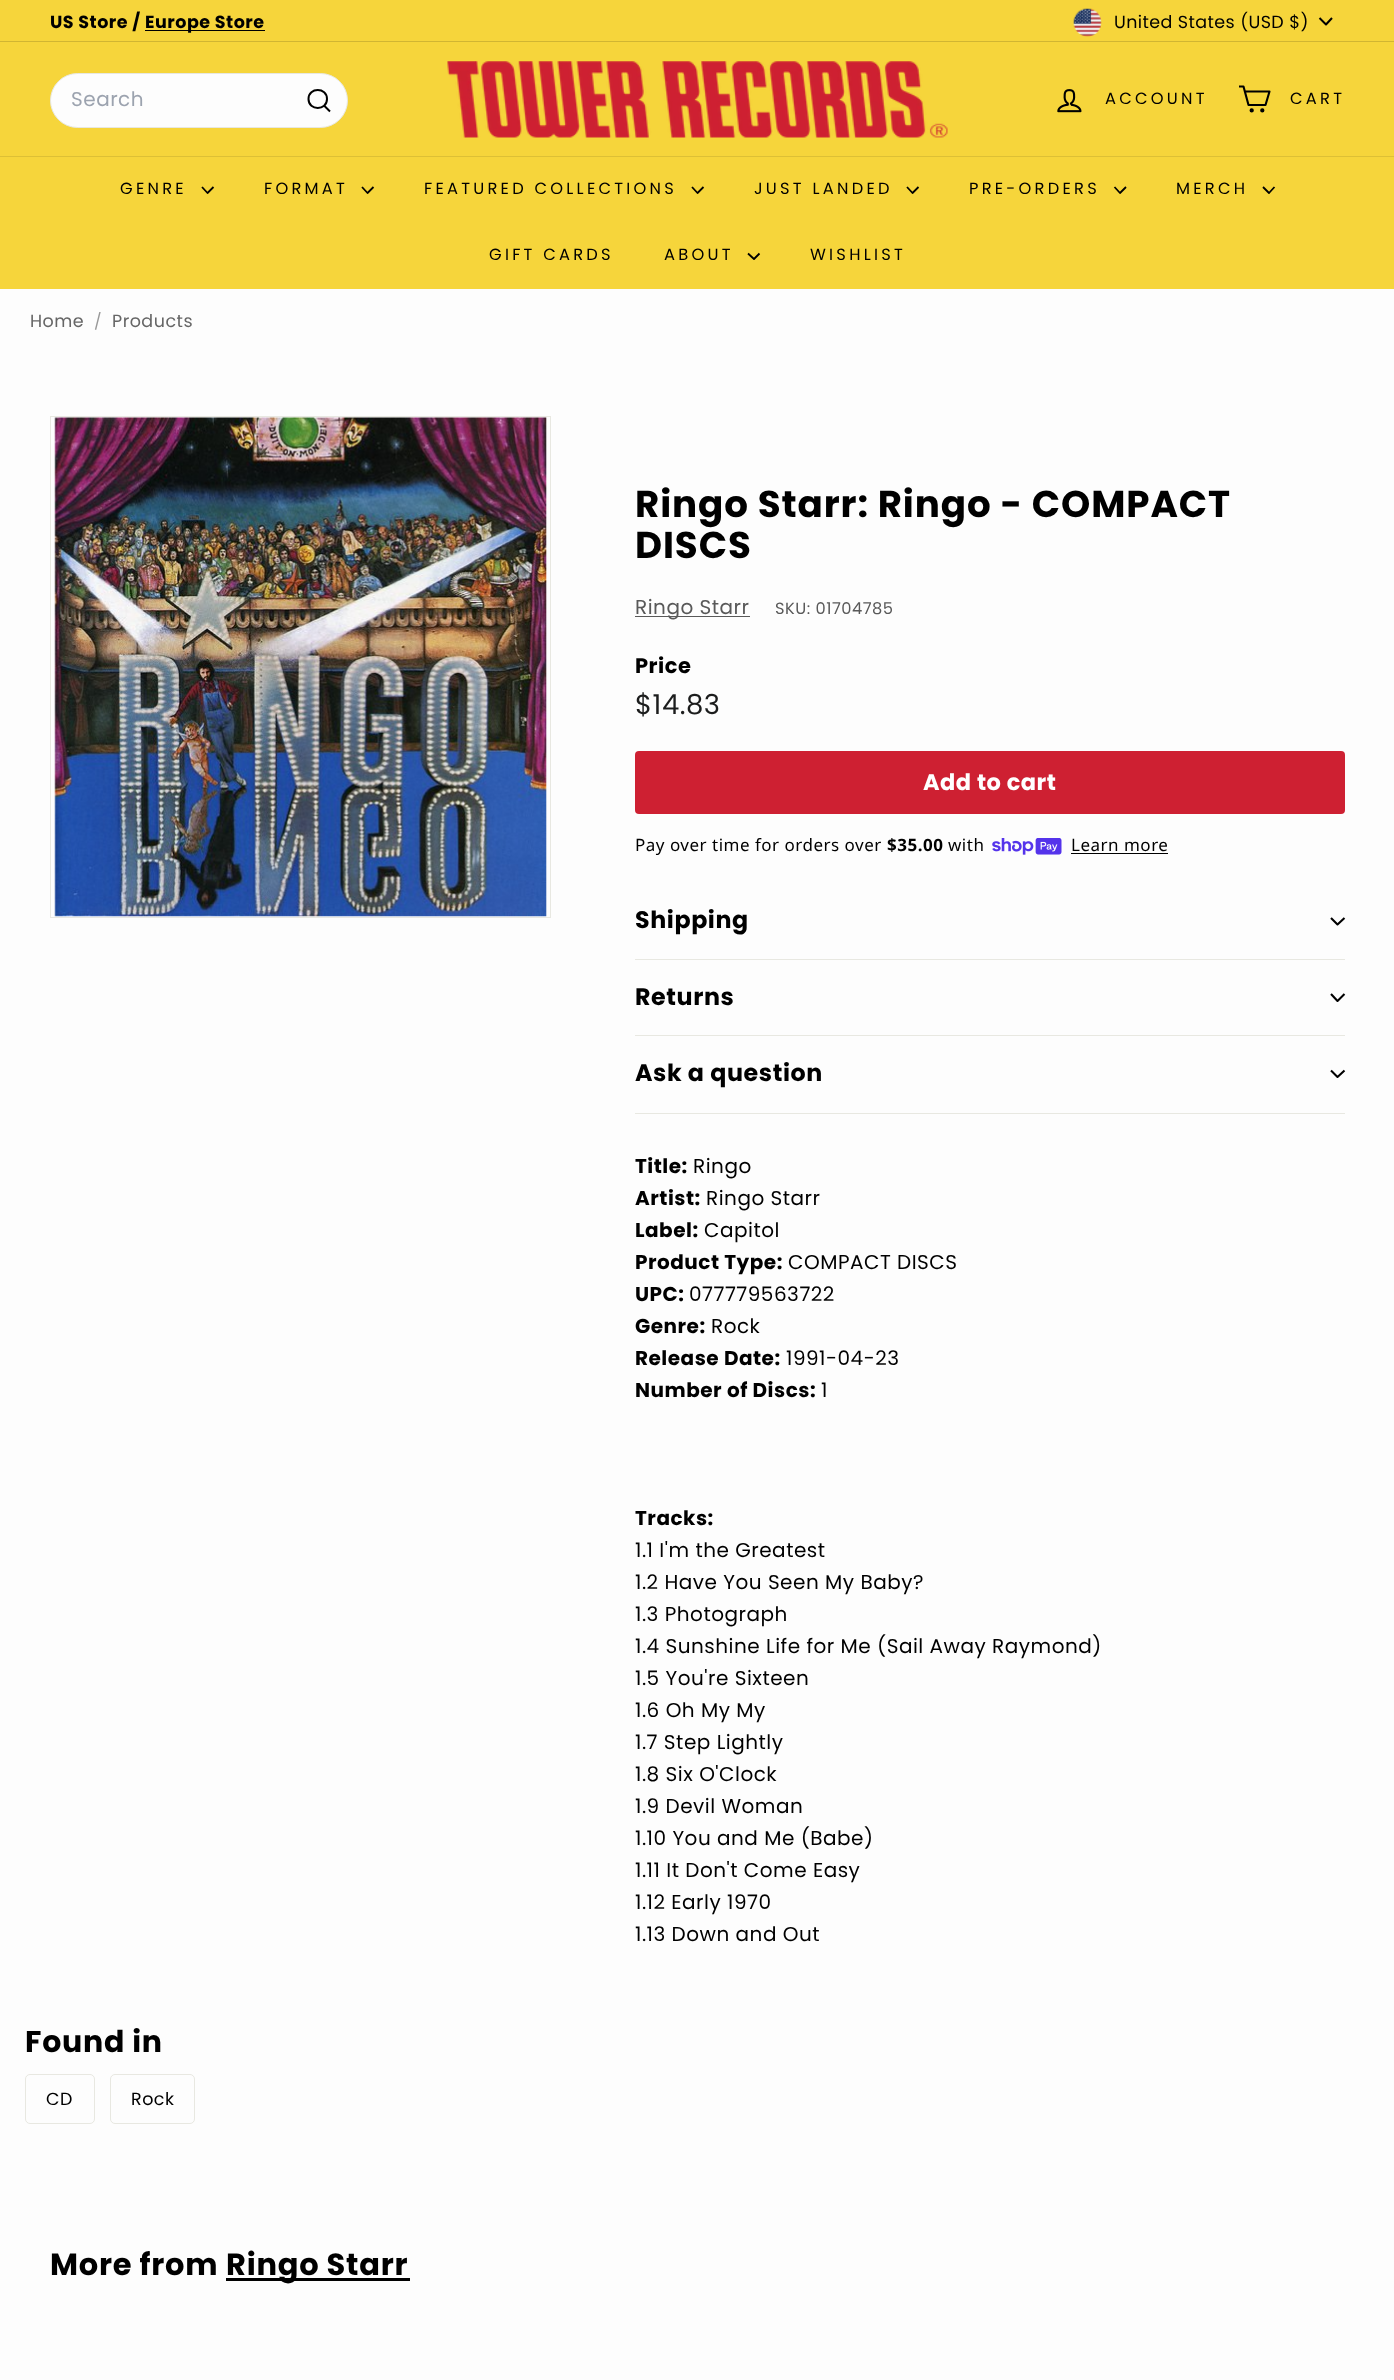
async function draw(canvas) {
  canvas.width = 1394
  canvas.height = 2380
  const ctx = canvas.getContext('2d')
  ctx.miterLimit = 4
  ctx.fontKerning = 'normal'
  async function loadImage(src) {
    const img = new Image()
    img.src = src
    await img.decode()
    return img
  }

  ctx.fillStyle = '#fdfdfd'
  ctx.fillRect(0, 0, 1394, 2380)
  ctx.fillStyle = '#f6d53b'
  ctx.fillRect(0, 0, 1394, 156)
  ctx.letterSpacing = '0.5px'
  ctx.font = 'bold 17.5px Poppins'
  ctx.fillStyle = '#000'
  ctx.fillText('US Store /', 50, 28)
  ctx.fillRect(145, 30, 120, 1)
  ctx.fillText('Europe Store', 145, 28)
  ctx.drawImage(await loadImage('image0.png'), 1073, 8, 29, 29)
  ctx.letterSpacing = '0.4px'
  ctx.font = '17.5px Poppins'
  ctx.fillText('United States (USD $)', 1114, 28)
  ctx.beginPath()
  ctx.moveTo(1319.5, 18)
  ctx.lineTo(1326, 24.5)
  ctx.lineTo(1332, 18)
  ctx.strokeStyle = '#000'
  ctx.lineWidth = 2
  ctx.lineJoin = 'round'
  ctx.stroke()
  ctx.fillStyle = '#d1b532'
  ctx.fillRect(0, 41, 1394, 1)
  ctx.fillStyle = '#fdfdfd'
  ctx.beginPath()
  ctx.roundRect(50.5, 73.5, 297, 54, 27)
  ctx.fill()
  ctx.strokeStyle = '#e8e8e1'
  ctx.lineWidth = 1
  ctx.lineJoin = 'miter'
  ctx.stroke()
  ctx.letterSpacing = '0.5px'
  ctx.font = '20px Poppins'
  ctx.fillStyle = '#9ca3af'
  ctx.fillText('Search', 71, 106)
  ctx.beginPath()
  ctx.moveTo(327, 99)
  ctx.bezierCurveTo(327, 111, 308.5, 111, 308.5, 99)
  ctx.bezierCurveTo(308.5, 87, 327, 87, 327, 99)
  ctx.moveTo(330, 111.5)
  ctx.lineTo(324, 105.5)
  ctx.strokeStyle = '#000'
  ctx.lineWidth = 2
  ctx.lineJoin = 'round'
  ctx.stroke()
  ctx.drawImage(await loadImage('image1.png'), 447, 61, 501, 77)
  ctx.drawImage(await loadImage('image2.png'), 1057, 89, 25, 24)
  ctx.letterSpacing = '3.25px'
  ctx.font = '16.25px Poppins'
  ctx.fillStyle = '#000'
  ctx.fillText('ACCOUNT', 1105, 104)
  ctx.beginPath()
  ctx.moveTo(1245, 91.5)
  ctx.lineTo(1269.5, 91.5)
  ctx.lineTo(1265.5, 105)
  ctx.lineTo(1248.5, 105)
  ctx.lineTo(1243.5, 86.5)
  ctx.lineTo(1239, 86.5)
  ctx.lineWidth = 2.1
  ctx.stroke()
  ctx.beginPath()
  ctx.arc(1251.7, 110.4, 1.1, 0, 2 * Math.PI)
  ctx.stroke()
  ctx.beginPath()
  ctx.arc(1262.3, 110.4, 1.1, 0, 2 * Math.PI)
  ctx.stroke()
  ctx.fillText('CART', 1290, 104)
  ctx.fillStyle = '#f6d53b'
  ctx.fillRect(0, 157, 1394, 132)
  ctx.fillStyle = '#ddc035'
  ctx.fillRect(0, 156, 1394, 1)
  ctx.fillStyle = '#000'
  ctx.fillText('GENRE', 120, 194)
  ctx.beginPath()
  ctx.moveTo(202, 187)
  ctx.lineTo(207.5, 193)
  ctx.lineTo(213.5, 187)
  ctx.lineWidth = 1.8
  ctx.stroke()
  ctx.fillText('FORMAT', 264, 194)
  ctx.beginPath()
  ctx.moveTo(362, 187)
  ctx.lineTo(367.5, 193)
  ctx.lineTo(373.5, 187)
  ctx.stroke()
  ctx.fillText('FEATURED COLLECTIONS', 424, 194)
  ctx.beginPath()
  ctx.moveTo(692, 187)
  ctx.lineTo(697.5, 193)
  ctx.lineTo(703.5, 187)
  ctx.stroke()
  ctx.fillText('JUST LANDED', 754, 194)
  ctx.beginPath()
  ctx.moveTo(907, 187)
  ctx.lineTo(912.5, 193)
  ctx.lineTo(918.5, 187)
  ctx.stroke()
  ctx.fillText('PRE-ORDERS', 969, 194)
  ctx.beginPath()
  ctx.moveTo(1114.5, 187)
  ctx.lineTo(1120, 193)
  ctx.lineTo(1126, 187)
  ctx.stroke()
  ctx.fillText('MERCH', 1176, 194)
  ctx.beginPath()
  ctx.moveTo(1263, 187)
  ctx.lineTo(1269, 193)
  ctx.lineTo(1274.5, 187)
  ctx.stroke()
  ctx.fillText('GIFT CARDS', 489, 260)
  ctx.fillText('ABOUT', 664, 260)
  ctx.beginPath()
  ctx.moveTo(748, 253.5)
  ctx.lineTo(754, 259)
  ctx.lineTo(759.5, 253.5)
  ctx.stroke()
  ctx.fillText('WISHLIST', 810, 260)
  ctx.letterSpacing = '0.5px'
  ctx.font = '17.5px Poppins'
  ctx.fillStyle = '#666'
  ctx.fillText('Home', 30, 327)
  ctx.font = '16px Poppins'
  ctx.fillStyle = '#999'
  ctx.fillText('/', 94, 327)
  ctx.font = '17.5px Poppins'
  ctx.fillStyle = '#666'
  ctx.fillText('Products', 112, 327)
  ctx.strokeStyle = '#e8e8e1'
  ctx.lineWidth = 1
  ctx.lineJoin = 'miter'
  ctx.strokeRect(50.5, 416.5, 500, 501)
  ctx.drawImage(await loadImage('image3.png'), 54, 417, 493, 500)
  ctx.letterSpacing = '0.9px'
  ctx.font = 'bold 37.25px Poppins'
  ctx.fillStyle = '#000'
  ctx.fillText('Ringo Starr: Ringo - COMPACT', 635, 517)
  ctx.fillText('DISCS', 635, 558)
  ctx.fillStyle = '#595959'
  ctx.fillRect(635, 616, 115, 1)
  ctx.letterSpacing = '0.5px'
  ctx.font = '20px Poppins'
  ctx.fillText('Ringo Starr', 635, 614)
  ctx.font = '16.25px Poppins'
  ctx.fillText('SKU: 01704785', 775, 614)
  ctx.font = 'bold 21px Poppins'
  ctx.fillStyle = '#000'
  ctx.fillText('Price', 635, 673)
  ctx.font = '27.5px Poppins'
  ctx.fillStyle = '#1c1d1d'
  ctx.fillText('$14.83', 635, 714)
  ctx.fillStyle = '#ce2032'
  ctx.beginPath()
  ctx.roundRect(635, 751, 710, 63, 4)
  ctx.fill()
  ctx.font = 'bold 22.5px Poppins'
  ctx.fillStyle = '#fff'
  ctx.fillText('Add to cart', 923, 790)
  ctx.font = '17px Noto Sans'
  ctx.fillStyle = '#000'
  ctx.fillText('Pay over time for orders over', 635, 851)
  ctx.font = 'bold 17px Noto Sans'
  ctx.fillText('$35.00', 887, 851)
  ctx.font = '17px Noto Sans'
  ctx.fillText('with', 948, 851)
  ctx.drawImage(await loadImage('image4.png'), 992, 838, 70, 17)
  ctx.fillText('Learn more', 1071, 851)
  ctx.fillRect(1071, 853, 97, 1)
  ctx.fillStyle = '#e8e8e1'
  ctx.fillRect(635, 959, 710, 1)
  ctx.letterSpacing = '0.6px'
  ctx.font = 'bold 23.75px Poppins'
  ctx.fillStyle = '#000'
  ctx.fillText('Shipping', 635, 928)
  ctx.beginPath()
  ctx.moveTo(1331, 918)
  ctx.lineTo(1337.5, 924.5)
  ctx.lineTo(1344.5, 918)
  ctx.strokeStyle = '#000'
  ctx.lineWidth = 2.1
  ctx.lineJoin = 'round'
  ctx.stroke()
  ctx.fillStyle = '#e8e8e1'
  ctx.fillRect(635, 1035, 710, 1)
  ctx.fillStyle = '#000'
  ctx.fillText('Returns', 635, 1005)
  ctx.beginPath()
  ctx.moveTo(1331, 994)
  ctx.lineTo(1337.5, 1001)
  ctx.lineTo(1344.5, 994)
  ctx.stroke()
  ctx.fillStyle = '#e8e8e1'
  ctx.fillRect(635, 1113, 710, 1)
  ctx.fillStyle = '#000'
  ctx.fillText('Ask a question', 635, 1081)
  ctx.beginPath()
  ctx.moveTo(1331, 1070.5)
  ctx.lineTo(1337.5, 1077)
  ctx.lineTo(1344.5, 1070.5)
  ctx.stroke()
  ctx.letterSpacing = '0.5px'
  ctx.font = 'bold 20px Poppins'
  ctx.fillText('Title:', 635, 1173)
  ctx.font = '20px Poppins'
  ctx.fillText('Ringo', 693, 1173)
  ctx.font = 'bold 20px Poppins'
  ctx.fillText('Artist:', 635, 1205)
  ctx.font = '20px Poppins'
  ctx.fillText('Ringo Starr', 706, 1205)
  ctx.font = 'bold 20px Poppins'
  ctx.fillText('Label:', 635, 1237)
  ctx.font = '20px Poppins'
  ctx.fillText('Capitol', 704, 1237)
  ctx.font = 'bold 20px Poppins'
  ctx.fillText('Product Type:', 635, 1269)
  ctx.font = '20px Poppins'
  ctx.fillText('COMPACT DISCS', 788, 1269)
  ctx.font = 'bold 20px Poppins'
  ctx.fillText('UPC:', 635, 1301)
  ctx.font = '20px Poppins'
  ctx.fillText('077779563722', 689, 1301)
  ctx.font = 'bold 20px Poppins'
  ctx.fillText('Genre:', 635, 1333)
  ctx.font = '20px Poppins'
  ctx.fillText('Rock', 711, 1333)
  ctx.font = 'bold 20px Poppins'
  ctx.fillText('Release Date:', 635, 1365)
  ctx.font = '20px Poppins'
  ctx.fillText('1991-04-23', 786, 1365)
  ctx.font = 'bold 20px Poppins'
  ctx.fillText('Number of Discs:', 635, 1397)
  ctx.font = '20px Poppins'
  ctx.fillText('1', 821, 1397)
  ctx.font = 'bold 20px Poppins'
  ctx.fillText('Tracks:', 635, 1525)
  ctx.font = '20px Poppins'
  ctx.fillText('1.1 I\'m the Greatest', 635, 1557)
  ctx.fillText('1.2 Have You Seen My Baby?', 635, 1589)
  ctx.fillText('1.3 Photograph', 635, 1621)
  ctx.fillText('1.4 Sunshine Life for Me (Sail Away Raymond)', 635, 1653)
  ctx.fillText('1.5 You\'re Sixteen', 635, 1685)
  ctx.fillText('1.6 Oh My My', 635, 1717)
  ctx.fillText('1.7 Step Lightly', 635, 1749)
  ctx.fillText('1.8 Six O\'Clock', 635, 1781)
  ctx.fillText('1.9 Devil Woman', 635, 1813)
  ctx.fillText('1.10 You and Me (Babe)', 635, 1845)
  ctx.fillText('1.11 It Don\'t Come Easy', 635, 1877)
  ctx.fillText('1.12 Early 1970', 635, 1909)
  ctx.fillText('1.13 Down and Out', 635, 1941)
  ctx.letterSpacing = '0.75px'
  ctx.font = 'bold 30px Poppins'
  ctx.fillText('Found in', 25, 2052)
  ctx.beginPath()
  ctx.roundRect(25.5, 2074.5, 69, 49, 4.5)
  ctx.strokeStyle = '#e8e8e1'
  ctx.lineWidth = 1
  ctx.lineJoin = 'miter'
  ctx.stroke()
  ctx.letterSpacing = '0.5px'
  ctx.font = '17.5px Poppins'
  ctx.fillText('CD', 46, 2105)
  ctx.beginPath()
  ctx.roundRect(110.5, 2074.5, 84, 49, 4.5)
  ctx.stroke()
  ctx.fillText('Rock', 131, 2105)
  ctx.letterSpacing = '0.75px'
  ctx.font = 'bold 30.5px Poppins'
  ctx.fillText('More from', 50, 2275)
  ctx.fillRect(226, 2278, 184, 3)
  ctx.fillText('Ringo Starr', 226, 2275)
}

draw(document.querySelector('canvas'))
